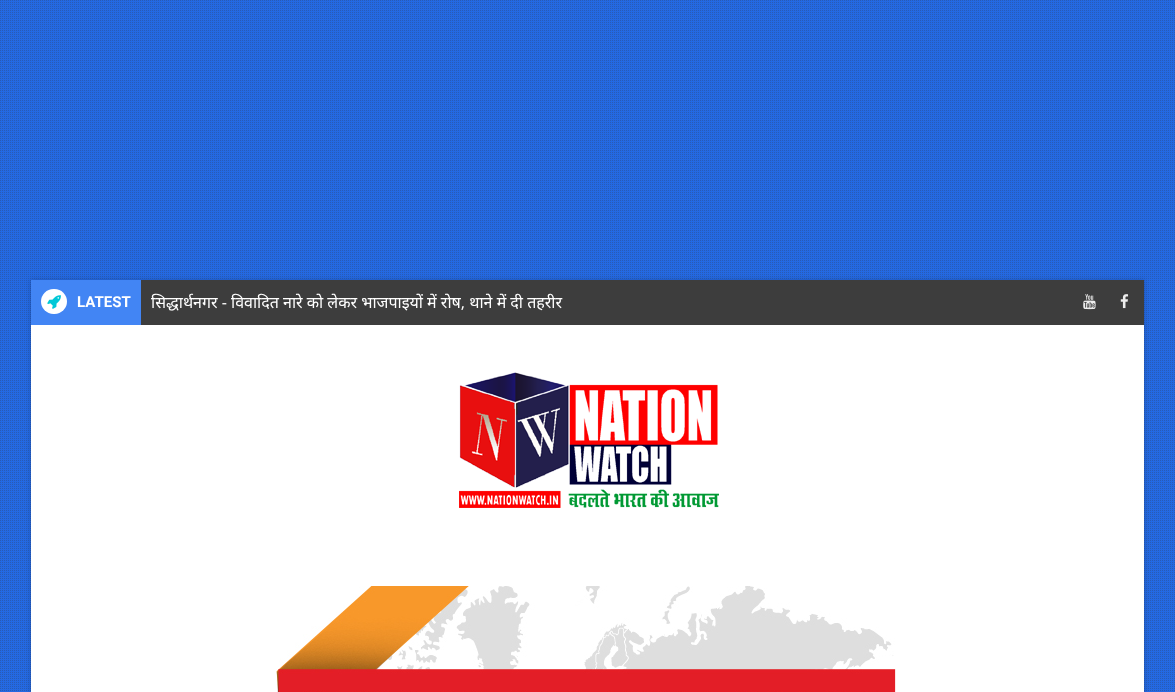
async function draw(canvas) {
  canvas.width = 1175
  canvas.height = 692
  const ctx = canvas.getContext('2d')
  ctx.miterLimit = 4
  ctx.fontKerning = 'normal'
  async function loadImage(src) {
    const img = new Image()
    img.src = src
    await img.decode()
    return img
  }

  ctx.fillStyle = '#2469e2'
  ctx.fillRect(0, 0, 1175, 692)
  ctx.drawImage(await loadImage('image0.png'), 0, 0, 1175, 691)
  ctx.fillStyle = '#00000033'
  ctx.filter = 'blur(2.5px)'
  ctx.beginPath()
  ctx.rect(31, 280, 1113, 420)
  ctx.fill()
  ctx.filter = 'none'
  ctx.fillStyle = '#fff'
  ctx.fillRect(31, 325, 1113, 367)
  ctx.fillStyle = '#3d3d3d'
  ctx.fillRect(141, 280, 1003, 45)
  ctx.fillStyle = '#4285f4'
  ctx.fillRect(31, 280, 110, 45)
  ctx.fillStyle = '#fff'
  ctx.beginPath()
  ctx.roundRect(41, 289, 26, 25, 12.5)
  ctx.fill()
  ctx.drawImage(await loadImage('image1.png'), 47, 295, 14, 14)
  ctx.font = 'bold 15px Roboto'
  ctx.fillText('LATEST', 77, 307)
  ctx.font = '16px Noto Sans'
  ctx.fillText('सिद्धार्थनगर - विवादित नारे को लेकर भाजपाइयों में रोष, थाने में दी तहरीर', 151, 308)
  ctx.drawImage(await loadImage('image2.png'), 1083, 294, 13, 16)
  ctx.drawImage(await loadImage('image3.png'), 1120, 294, 9, 15)
  ctx.drawImage(await loadImage('image4.png'), 459, 372, 260, 136)
  ctx.drawImage(await loadImage('image5.png'), 276, 586, 620, 106)
}

draw(document.querySelector('canvas'))
